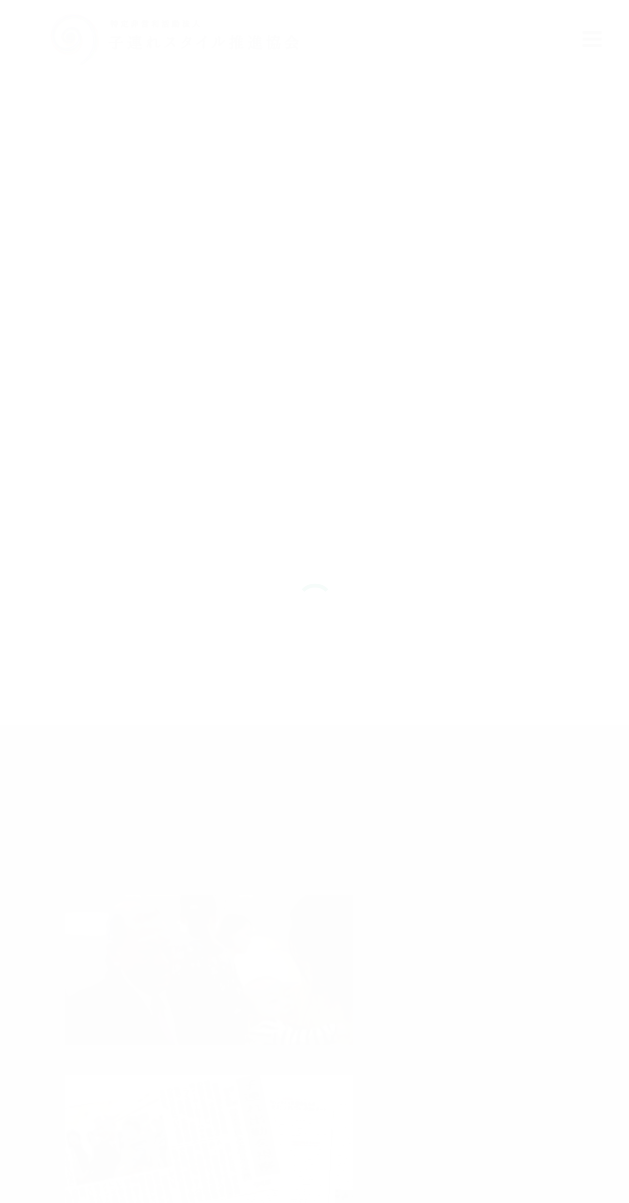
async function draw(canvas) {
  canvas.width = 629
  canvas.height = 1203
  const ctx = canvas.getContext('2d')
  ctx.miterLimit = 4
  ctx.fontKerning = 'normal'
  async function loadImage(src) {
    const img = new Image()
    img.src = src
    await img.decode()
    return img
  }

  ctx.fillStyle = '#fff'
  ctx.fillRect(0, 0, 629, 1203)
  ctx.drawImage(await loadImage('image0.png'), 50, 13, 250, 52)
  ctx.drawImage(await loadImage('image1.png'), 582, 31, 20, 17)
  ctx.beginPath()
  ctx.moveTo(303, 590.5)
  ctx.bezierCurveTo(309.5, 584, 320.5, 584, 327, 590.5)
  ctx.strokeStyle = '#f6fcfa'
  ctx.lineWidth = 3.8
  ctx.stroke()
  ctx.drawImage(await loadImage('image2.png'), 0, 725, 629, 478)
  ctx.drawImage(await loadImage('image3.png'), 65, 895, 288, 150)
  ctx.drawImage(await loadImage('image4.png'), 65, 1075, 288, 128)
}

draw(document.querySelector('canvas'))
